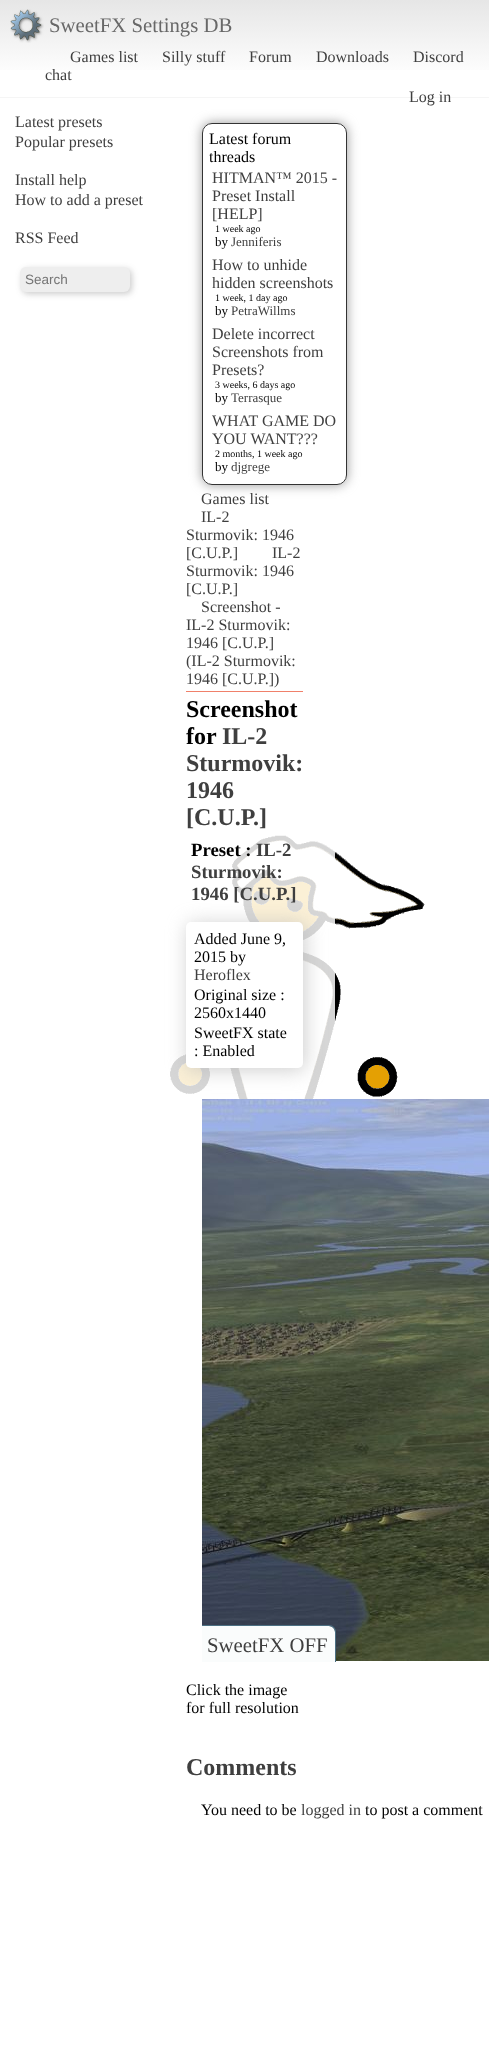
async function draw(canvas) {
  canvas.width = 489
  canvas.height = 2048
  const ctx = canvas.getContext('2d')
  ctx.miterLimit = 4
  ctx.fontKerning = 'normal'
  async function loadImage(src) {
    const img = new Image()
    img.src = src
    await img.decode()
    return img
  }
  let gradient

  ctx.fillStyle = '#fff'
  ctx.fillRect(0, 0, 489, 2048)
  ctx.drawImage(await loadImage('image0.png'), 170, 835, 255, 264)
  gradient = ctx.createLinearGradient(245, 0, 245, 97)
  gradient.addColorStop(0, '#e6e6e6')
  gradient.addColorStop(0.8, '#fff')
  ctx.fillStyle = gradient
  ctx.fillRect(0, 0, 489, 70)
  ctx.fillStyle = '#f5f5f5'
  ctx.fillRect(0, 97, 489, 1)
  ctx.drawImage(await loadImage('image1.png'), 10, 9, 34, 34)
  ctx.font = '20.75px Liberation Serif'
  ctx.fillStyle = '#686868'
  ctx.fillText('SweetFX Settings DB', 49, 32)
  ctx.font = '16px Liberation Serif'
  ctx.fillStyle = '#3f3f3f'
  ctx.fillText('Games list', 70, 62)
  ctx.fillText('Silly stuff', 162, 62)
  ctx.fillText('Forum', 249, 62)
  ctx.fillText('Downloads', 316, 62)
  ctx.fillText('Discord', 413, 62)
  ctx.fillText('chat', 45, 80)
  ctx.fillText('Log in', 409, 102)
  ctx.fillText('Latest presets', 15, 127)
  ctx.fillText('Popular presets', 15, 147)
  ctx.fillText('Install help', 15, 185)
  ctx.fillText('How to add a preset', 15, 205)
  ctx.fillText('RSS Feed', 15, 243)
  ctx.fillStyle = '#32323240'
  ctx.filter = 'blur(3px)'
  ctx.beginPath()
  ctx.roundRect(22, 269, 110, 25, 6)
  ctx.fill()
  ctx.filter = 'none'
  ctx.fillStyle = '#eee'
  ctx.beginPath()
  ctx.roundRect(20, 267, 110, 25, 6)
  ctx.fill()
  ctx.font = '13.5px Liberation Sans'
  ctx.fillStyle = '#757575'
  ctx.fillText('Search', 25, 284)
  ctx.save()
  ctx.beginPath()
  ctx.moveTo(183, 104)
  ctx.lineTo(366, 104)
  ctx.lineTo(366, 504)
  ctx.lineTo(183, 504)
  ctx.closePath()
  ctx.moveTo(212, 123)
  ctx.lineTo(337, 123)
  ctx.bezierCurveTo(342.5, 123, 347, 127.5, 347, 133)
  ctx.lineTo(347, 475)
  ctx.bezierCurveTo(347, 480.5, 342.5, 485, 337, 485)
  ctx.lineTo(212, 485)
  ctx.bezierCurveTo(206.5, 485, 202, 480.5, 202, 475)
  ctx.lineTo(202, 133)
  ctx.bezierCurveTo(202, 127.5, 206.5, 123, 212, 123)
  ctx.closePath()
  ctx.clip('evenodd')
  ctx.fillStyle = '#999'
  ctx.filter = 'blur(6px)'
  ctx.beginPath()
  ctx.roundRect(202, 123, 145, 362, 10)
  ctx.fill()
  ctx.filter = 'none'
  ctx.restore()
  ctx.beginPath()
  ctx.roundRect(202.5, 123.5, 144, 361, 9.5)
  ctx.strokeStyle = '#333'
  ctx.stroke()
  ctx.font = '16px Liberation Serif'
  ctx.fillStyle = '#000'
  ctx.fillText('Latest forum', 209, 144)
  ctx.fillText('threads', 209, 162)
  ctx.fillStyle = '#3f3f3f'
  ctx.fillText('HITMAN™ 2015 -', 212, 183)
  ctx.fillText('Preset Install', 212, 201)
  ctx.fillText('[HELP]', 212, 219)
  ctx.font = '10px Liberation Serif'
  ctx.fillStyle = '#000'
  ctx.fillText('1 week ago', 215, 232)
  ctx.font = '13px Liberation Serif'
  ctx.fillText('by', 215, 246)
  ctx.fillStyle = '#3f3f3f'
  ctx.fillText('Jenniferis', 231, 246)
  ctx.font = '16px Liberation Serif'
  ctx.fillText('How to unhide', 212, 270)
  ctx.fillText('hidden screenshots', 212, 288)
  ctx.font = '10px Liberation Serif'
  ctx.fillStyle = '#000'
  ctx.fillText('1 week, 1 day ago', 215, 301)
  ctx.font = '13px Liberation Serif'
  ctx.fillText('by', 215, 315)
  ctx.fillStyle = '#3f3f3f'
  ctx.fillText('PetraWillms', 231, 315)
  ctx.font = '16px Liberation Serif'
  ctx.fillText('Delete incorrect', 212, 339)
  ctx.fillText('Screenshots from', 212, 357)
  ctx.fillText('Presets?', 212, 375)
  ctx.font = '10px Liberation Serif'
  ctx.fillStyle = '#000'
  ctx.fillText('3 weeks, 6 days ago', 215, 388)
  ctx.font = '13px Liberation Serif'
  ctx.fillText('by', 215, 402)
  ctx.fillStyle = '#3f3f3f'
  ctx.fillText('Terrasque', 231, 402)
  ctx.font = '16px Liberation Serif'
  ctx.fillText('WHAT GAME DO', 212, 426)
  ctx.fillText('YOU WANT???', 212, 444)
  ctx.font = '10px Liberation Serif'
  ctx.fillStyle = '#000'
  ctx.fillText('2 months, 1 week ago', 215, 457)
  ctx.font = '13px Liberation Serif'
  ctx.fillText('by', 215, 471)
  ctx.fillStyle = '#3f3f3f'
  ctx.fillText('djgrege', 231, 471)
  ctx.fillStyle = '#ffffffd6'
  ctx.fillRect(170, 835, 165, 264)
  ctx.fillStyle = '#f0806a'
  ctx.fillRect(186, 691, 117, 1)
  ctx.font = '16px Liberation Serif'
  ctx.fillStyle = '#3f3f3f'
  ctx.fillText('Games list', 201, 504)
  ctx.fillText('IL-2', 201, 522)
  ctx.fillText('Sturmovik: 1946', 186, 540)
  ctx.fillText('[C.U.P.]', 186, 558)
  ctx.fillText('IL-2', 272, 558)
  ctx.fillText('Sturmovik: 1946', 186, 576)
  ctx.fillText('[C.U.P.]', 186, 594)
  ctx.fillText('Screenshot -', 201, 612)
  ctx.fillText('IL-2 Sturmovik:', 186, 630)
  ctx.fillText('1946 [C.U.P.]', 186, 648)
  ctx.fillText('(IL-2 Sturmovik:', 186, 666)
  ctx.fillText('1946 [C.U.P.])', 186, 684)
  ctx.font = 'bold 24px Liberation Serif'
  ctx.fillStyle = '#000'
  ctx.fillText('Screenshot', 186, 717)
  ctx.fillText('for', 186, 744)
  ctx.fillStyle = '#3f3f3f'
  ctx.fillText('IL-2', 222, 744)
  ctx.fillText('Sturmovik:', 186, 771)
  ctx.fillText('1946', 186, 798)
  ctx.fillText('[C.U.P.]', 186, 825)
  ctx.font = 'bold 18.75px Liberation Serif'
  ctx.fillStyle = '#000'
  ctx.fillText('Preset :', 191, 856)
  ctx.fillStyle = '#3f3f3f'
  ctx.fillText('IL-2', 256, 856)
  ctx.fillText('Sturmovik:', 191, 878)
  ctx.fillText('1946 [C.U.P.]', 191, 900)
  ctx.fillStyle = '#b6b6b6ad'
  ctx.filter = 'blur(10px)'
  ctx.beginPath()
  ctx.roundRect(188, 924, 117, 146, 5)
  ctx.fill()
  ctx.filter = 'none'
  ctx.fillStyle = '#fff'
  ctx.beginPath()
  ctx.roundRect(186, 922, 117, 146, 5)
  ctx.fill()
  ctx.font = '16px Liberation Serif'
  ctx.fillStyle = '#000'
  ctx.fillText('Added June 9,', 194, 944)
  ctx.fillText('2015 by', 194, 962)
  ctx.fillStyle = '#3f3f3f'
  ctx.fillText('Heroflex', 194, 980)
  ctx.fillStyle = '#000'
  ctx.fillText('Original size :', 194, 1000)
  ctx.fillText('2560x1440', 194, 1018)
  ctx.fillText('SweetFX state', 194, 1038)
  ctx.fillText(': Enabled', 194, 1056)
  ctx.drawImage(await loadImage('image2.png'), 202, 1099, 287, 562)
  ctx.fillStyle = '#fafcfc'
  ctx.beginPath()
  ctx.roundRect(202, 1626, 133, 36, [0, 6, 0, 0])
  ctx.fill()
  ctx.fillStyle = '#4c7083'
  ctx.beginPath()
  ctx.moveTo(202, 1625)
  ctx.lineTo(329, 1625)
  ctx.bezierCurveTo(333, 1625, 336, 1628, 336, 1632)
  ctx.lineTo(336, 1662)
  ctx.lineTo(202, 1662)
  ctx.closePath()
  ctx.moveTo(202, 1626)
  ctx.lineTo(329, 1626)
  ctx.bezierCurveTo(332, 1626, 335, 1629, 335, 1632)
  ctx.lineTo(335, 1662)
  ctx.lineTo(202, 1662)
  ctx.closePath()
  ctx.fill('evenodd')
  ctx.font = '20.75px Liberation Serif'
  ctx.fillStyle = '#3f3f3f'
  ctx.fillText('SweetFX OFF', 207, 1652)
  ctx.font = '16px Liberation Serif'
  ctx.fillStyle = '#000'
  ctx.fillText('Click the image', 186, 1695)
  ctx.fillText('for full resolution', 186, 1713)
  ctx.font = 'bold 24px Liberation Serif'
  ctx.fillStyle = '#3f3f3f'
  ctx.fillText('Comments', 186, 1775)
  ctx.font = '16px Liberation Serif'
  ctx.fillStyle = '#000'
  ctx.fillText('You need to be', 201, 1815)
  ctx.fillStyle = '#3f3f3f'
  ctx.fillText('logged in', 301, 1815)
  ctx.fillStyle = '#000'
  ctx.fillText('to post a comment', 365, 1815)
}

draw(document.querySelector('canvas'))
